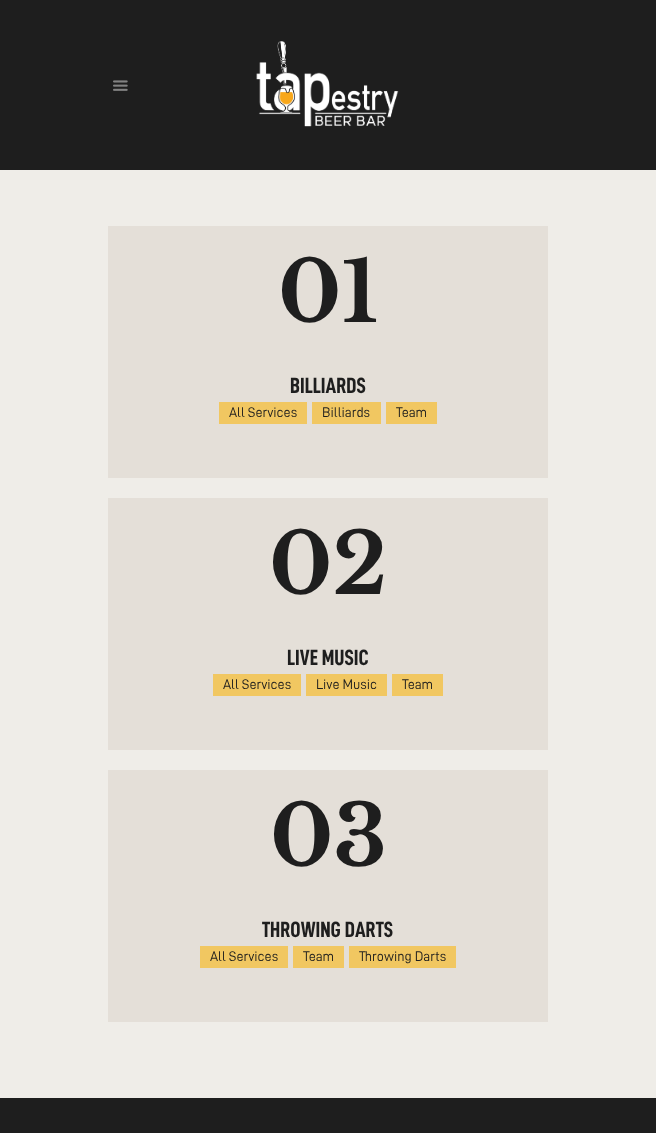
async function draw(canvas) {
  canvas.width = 656
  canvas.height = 1133
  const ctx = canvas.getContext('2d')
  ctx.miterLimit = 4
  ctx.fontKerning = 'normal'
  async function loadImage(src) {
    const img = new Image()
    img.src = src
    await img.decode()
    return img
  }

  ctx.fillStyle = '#efede8'
  ctx.fillRect(0, 0, 656, 1133)
  ctx.fillStyle = '#1e1e1e'
  ctx.fillRect(0, 0, 656, 170)
  ctx.drawImage(await loadImage('image0.png'), 113, 80, 15, 11)
  ctx.drawImage(await loadImage('image1.png'), 256, 41, 143, 86)
  ctx.fillStyle = '#e4dfd8'
  ctx.fillRect(108, 226, 440, 252)
  ctx.font = 'bold 84px Libre Baskerville'
  ctx.fillStyle = '#1e1e1e'
  ctx.fillText('01', 278, 322)
  ctx.font = 'bold 22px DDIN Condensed'
  ctx.fillText('BILLIARDS', 290, 393)
  ctx.fillStyle = '#f1c761'
  ctx.fillRect(219, 402, 88, 22)
  ctx.font = '14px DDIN'
  ctx.fillStyle = '#1e1e1e'
  ctx.fillText('All Services', 229, 417)
  ctx.fillStyle = '#f1c761'
  ctx.fillRect(312, 402, 69, 22)
  ctx.fillStyle = '#1e1e1e'
  ctx.fillText('Billiards', 322, 417)
  ctx.fillStyle = '#f1c761'
  ctx.fillRect(386, 402, 51, 22)
  ctx.fillStyle = '#1e1e1e'
  ctx.fillText('Team', 396, 417)
  ctx.fillStyle = '#e4dfd8'
  ctx.fillRect(108, 498, 440, 252)
  ctx.font = 'bold 84px Libre Baskerville'
  ctx.fillStyle = '#1e1e1e'
  ctx.fillText('02', 269, 594)
  ctx.font = 'bold 22px DDIN Condensed'
  ctx.fillText('LIVE MUSIC', 287, 665)
  ctx.fillStyle = '#f1c761'
  ctx.fillRect(213, 674, 88, 22)
  ctx.font = '14px DDIN'
  ctx.fillStyle = '#1e1e1e'
  ctx.fillText('All Services', 223, 689)
  ctx.fillStyle = '#f1c761'
  ctx.fillRect(306, 674, 81, 22)
  ctx.fillStyle = '#1e1e1e'
  ctx.fillText('Live Music', 316, 689)
  ctx.fillStyle = '#f1c761'
  ctx.fillRect(392, 674, 51, 22)
  ctx.fillStyle = '#1e1e1e'
  ctx.fillText('Team', 402, 689)
  ctx.fillStyle = '#e4dfd8'
  ctx.fillRect(108, 770, 440, 252)
  ctx.font = 'bold 84px Libre Baskerville'
  ctx.fillStyle = '#1e1e1e'
  ctx.fillText('03', 270, 866)
  ctx.font = 'bold 22px DDIN Condensed'
  ctx.fillText('THROWING DARTS', 262, 937)
  ctx.fillStyle = '#f1c761'
  ctx.fillRect(200, 946, 88, 22)
  ctx.font = '14px DDIN'
  ctx.fillStyle = '#1e1e1e'
  ctx.fillText('All Services', 210, 961)
  ctx.fillStyle = '#f1c761'
  ctx.fillRect(293, 946, 51, 22)
  ctx.fillStyle = '#1e1e1e'
  ctx.fillText('Team', 303, 961)
  ctx.fillStyle = '#f1c761'
  ctx.fillRect(349, 946, 107, 22)
  ctx.fillStyle = '#1e1e1e'
  ctx.fillText('Throwing Darts', 359, 961)
  ctx.fillRect(0, 1098, 656, 35)
}

draw(document.querySelector('canvas'))
